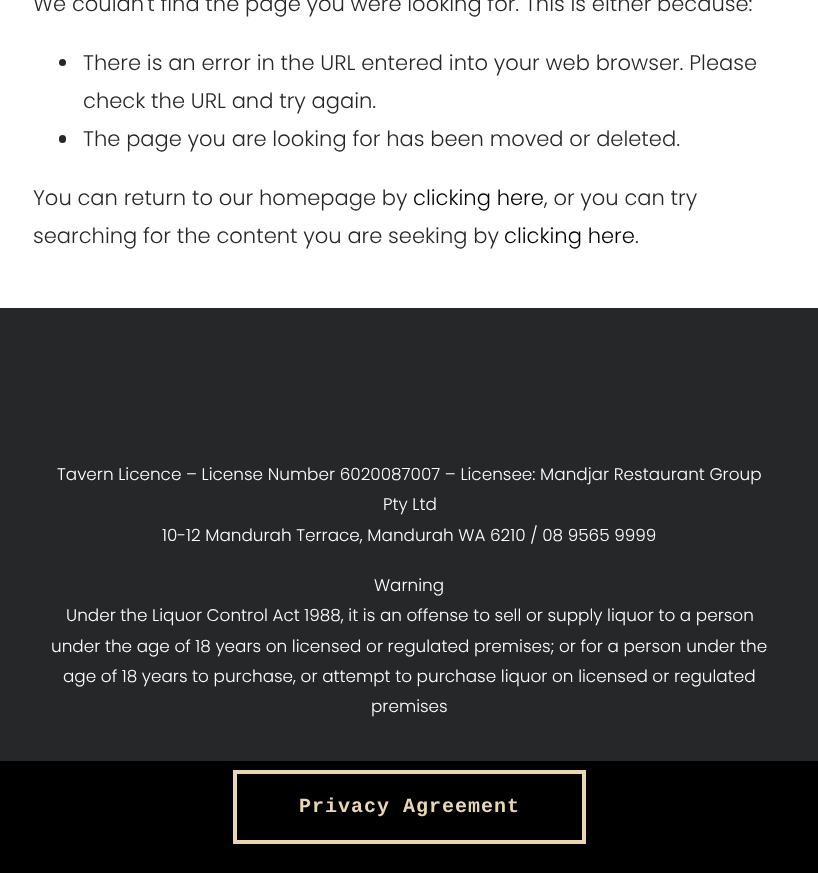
async function draw(canvas) {
  canvas.width = 818
  canvas.height = 873
  const ctx = canvas.getContext('2d')
  ctx.miterLimit = 4
  ctx.fontKerning = 'normal'

  ctx.fillStyle = '#fff'
  ctx.fillRect(0, 0, 818, 873)
  ctx.font = '300 21.05px Poppins'
  ctx.fillStyle = '#252728'
  ctx.fillText('We couldn\'t find the page you were looking for. This is either because:', 33, 11)
  ctx.beginPath()
  ctx.arc(62.5, 62.5, 3.5, 0, 2 * Math.PI)
  ctx.fill()
  ctx.fillText('There is an error in the URL entered into your web browser. Please', 83, 70)
  ctx.fillText('check the URL and try again.', 83, 108)
  ctx.beginPath()
  ctx.roundRect(59, 135, 7, 8, 3.5)
  ctx.fill()
  ctx.fillText('The page you are looking for has been moved or deleted.', 83, 146)
  ctx.fillText('You can return to our homepage by', 33, 205)
  ctx.fillStyle = '#000'
  ctx.fillText('clicking here', 413, 205)
  ctx.fillStyle = '#252728'
  ctx.fillText(', or you can try', 544, 205)
  ctx.fillText('searching for the content you are seeking by', 33, 243)
  ctx.fillStyle = '#000'
  ctx.fillText('clicking here', 504, 243)
  ctx.fillStyle = '#252728'
  ctx.fillText('.', 635, 243)
  ctx.fillRect(0, 308, 818, 453)
  ctx.font = '300 16.85px Poppins'
  ctx.fillStyle = '#fff'
  ctx.fillText('Tavern Licence – License Number 6020087007 – Licensee: Mandjar Restaurant Group', 57, 480)
  ctx.fillText('Pty Ltd', 383, 510)
  ctx.fillText('10-12 Mandurah Terrace, Mandurah WA 6210 / 08 9565 9999', 162, 541)
  ctx.fillText('Warning', 374, 591)
  ctx.fillText('Under the Liquor Control Act 1988, it is an offense to sell or supply liquor to a person', 66, 621)
  ctx.fillText('under the age of 18 years on licensed or regulated premises; or for a person under the', 51, 652)
  ctx.fillText('age of 18 years to purchase, or attempt to purchase liquor on licensed or regulated', 63, 682)
  ctx.fillText('premises', 371, 712)
  ctx.fillStyle = '#000'
  ctx.fillRect(0, 761, 818, 112)
  ctx.strokeStyle = '#e9d7b2'
  ctx.lineWidth = 4
  ctx.strokeRect(235, 772, 349, 70)
  ctx.letterSpacing = '1px'
  ctx.font = 'bold 20px Liberation Mono'
  ctx.fillStyle = '#e9d7b2'
  ctx.fillText('Privacy Agreement', 299, 812)
}

draw(document.querySelector('canvas'))
